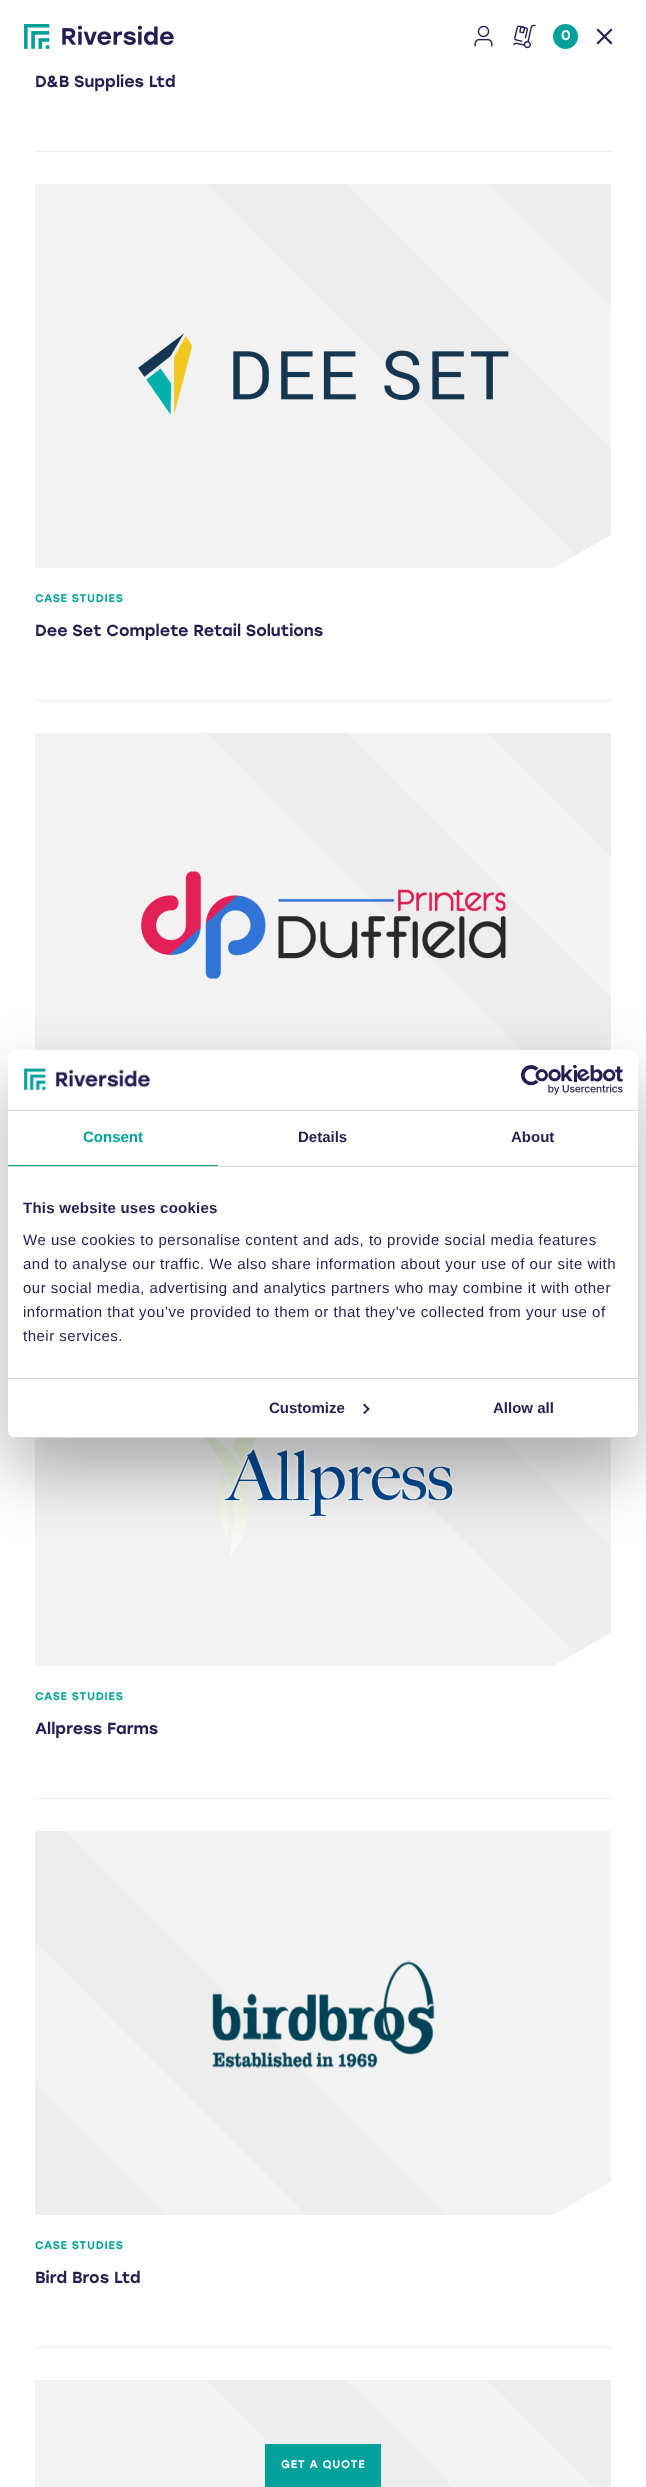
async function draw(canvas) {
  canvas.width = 646
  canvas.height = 2487
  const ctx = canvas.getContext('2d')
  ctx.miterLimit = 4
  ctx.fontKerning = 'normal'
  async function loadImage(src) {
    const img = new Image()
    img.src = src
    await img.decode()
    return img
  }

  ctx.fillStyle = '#fff'
  ctx.fillRect(0, 0, 646, 2487)
  ctx.drawImage(await loadImage('image0.png'), 24, 24, 150, 25)
  ctx.drawImage(await loadImage('image1.png'), 474, 25, 19, 22)
  ctx.drawImage(await loadImage('image2.png'), 513, 24, 23, 25)
  ctx.fillStyle = '#00a19a'
  ctx.beginPath()
  ctx.arc(565.5, 36.5, 12.5, 0, 2 * Math.PI)
  ctx.fill()
  ctx.font = '500 14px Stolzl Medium'
  ctx.fillStyle = '#fff'
  ctx.fillText('0', 561, 40)
  ctx.fillStyle = '#241e51'
  ctx.beginPath()
  ctx.moveTo(612.5, 30)
  ctx.lineTo(598, 44.5)
  ctx.lineTo(596.5, 43)
  ctx.lineTo(611, 28.5)
  ctx.closePath()
  ctx.fill()
  ctx.beginPath()
  ctx.moveTo(611, 44.5)
  ctx.lineTo(596.5, 30)
  ctx.lineTo(598, 28.5)
  ctx.lineTo(612.5, 43)
  ctx.closePath()
  ctx.fill()
  ctx.font = '500 16px Stolzl Medium'
  ctx.fillText('D&B Supplies Ltd', 35, 87)
  ctx.fillStyle = '#e9e9ee'
  ctx.fillRect(35, 151, 576, 1)
  ctx.drawImage(await loadImage('image3.png'), 35, 184, 576, 384)
  ctx.letterSpacing = '0.75px'
  ctx.font = '500 11px Stolzl Medium'
  ctx.fillStyle = '#00a19a'
  ctx.fillText('CASE STUDIES', 35, 602)
  ctx.letterSpacing = '0px'
  ctx.font = '500 16px Stolzl Medium'
  ctx.fillStyle = '#241e51'
  ctx.fillText('Dee Set Complete Retail Solutions', 35, 636)
  ctx.fillStyle = '#e9e9ee'
  ctx.fillRect(35, 700, 576, 1)
  ctx.drawImage(await loadImage('image4.png'), 35, 733, 576, 317)
  ctx.drawImage(await loadImage('image5.png'), 35, 1438, 576, 228)
  ctx.letterSpacing = '0.75px'
  ctx.font = '500 11px Stolzl Medium'
  ctx.fillStyle = '#00a19a'
  ctx.fillText('CASE STUDIES', 35, 1700)
  ctx.letterSpacing = '0px'
  ctx.font = '500 16px Stolzl Medium'
  ctx.fillStyle = '#241e51'
  ctx.fillText('Allpress Farms', 35, 1734)
  ctx.fillStyle = '#e9e9ee'
  ctx.fillRect(35, 1798, 576, 1)
  ctx.drawImage(await loadImage('image6.png'), 35, 1831, 576, 384)
  ctx.letterSpacing = '0.75px'
  ctx.font = '500 11px Stolzl Medium'
  ctx.fillStyle = '#00a19a'
  ctx.fillText('CASE STUDIES', 35, 2249)
  ctx.letterSpacing = '0px'
  ctx.font = '500 16px Stolzl Medium'
  ctx.fillStyle = '#241e51'
  ctx.fillText('Bird Bros Ltd', 35, 2283)
  ctx.fillStyle = '#e9e9ee'
  ctx.fillRect(35, 2347, 576, 1)
  ctx.drawImage(await loadImage('image7.png'), 35, 2380, 576, 107)
  ctx.fillStyle = '#0000004d'
  ctx.filter = 'blur(34px)'
  ctx.beginPath()
  ctx.roundRect(8, 1082, 630, 388, 8)
  ctx.fill()
  ctx.filter = 'none'
  ctx.fillStyle = '#fff'
  ctx.beginPath()
  ctx.roundRect(8, 1050, 630, 388, 8)
  ctx.fill()
  ctx.fillStyle = '#d6d6d6'
  ctx.fillRect(8, 1110, 630, 1)
  ctx.drawImage(await loadImage('image8.png'), 24, 1067, 127, 24)
  ctx.drawImage(await loadImage('image9.png'), 521, 1065, 102, 30)
  ctx.fillRect(8, 1166, 630, 1)
  ctx.fillStyle = '#00a19a'
  ctx.fillRect(8, 1165, 210, 1)
  ctx.font = 'bold 15px Liberation Sans'
  ctx.fillText('Consent', 83, 1142)
  ctx.fillStyle = '#241e51'
  ctx.fillText('Details', 298, 1142)
  ctx.fillText('About', 511, 1142)
  ctx.fillStyle = '#d6d6d6'
  ctx.fillRect(8, 1378, 630, 1)
  ctx.letterSpacing = '0.25px'
  ctx.fillStyle = '#241e51'
  ctx.fillText('This website uses cookies', 23, 1213)
  ctx.letterSpacing = '0.5px'
  ctx.font = '15px Liberation Sans'
  ctx.fillText('We use cookies to personalise content and ads, to provide social media features', 23, 1245)
  ctx.fillText('and to analyse our traffic. We also share information about your use of our site with', 23, 1269)
  ctx.fillText('our social media, advertising and analytics partners who may combine it with other', 23, 1293)
  ctx.fillText('information that you’ve provided to them or that they’ve collected from your use of', 23, 1317)
  ctx.fillText('their services.', 23, 1341)
  ctx.save()
  ctx.beginPath()
  ctx.roundRect(8, 1050, 630, 388, 8)
  ctx.clip()
  ctx.fillStyle = '#d6d6d6'
  ctx.fillRect(8, 1437, 630, 1)
  ctx.restore()
  ctx.letterSpacing = '0px'
  ctx.font = 'bold 15px Liberation Sans'
  ctx.fillText('Customize', 269, 1413)
  ctx.beginPath()
  ctx.moveTo(364.5, 1403.5)
  ctx.lineTo(369.5, 1409)
  ctx.lineTo(368.5, 1410.5)
  ctx.lineTo(363, 1405)
  ctx.closePath()
  ctx.fill()
  ctx.beginPath()
  ctx.moveTo(368.5, 1407.5)
  ctx.lineTo(369.5, 1409)
  ctx.lineTo(364.5, 1414)
  ctx.lineTo(363, 1413)
  ctx.closePath()
  ctx.fill()
  ctx.fillText('Allow all', 493, 1413)
  ctx.fillStyle = '#00a19a'
  ctx.fillRect(265, 2444, 116, 43)
  ctx.letterSpacing = '0.75px'
  ctx.font = '500 11px Stolzl Medium'
  ctx.fillStyle = '#fff'
  ctx.fillText('GET A QUOTE', 281, 2468)
}

draw(document.querySelector('canvas'))
